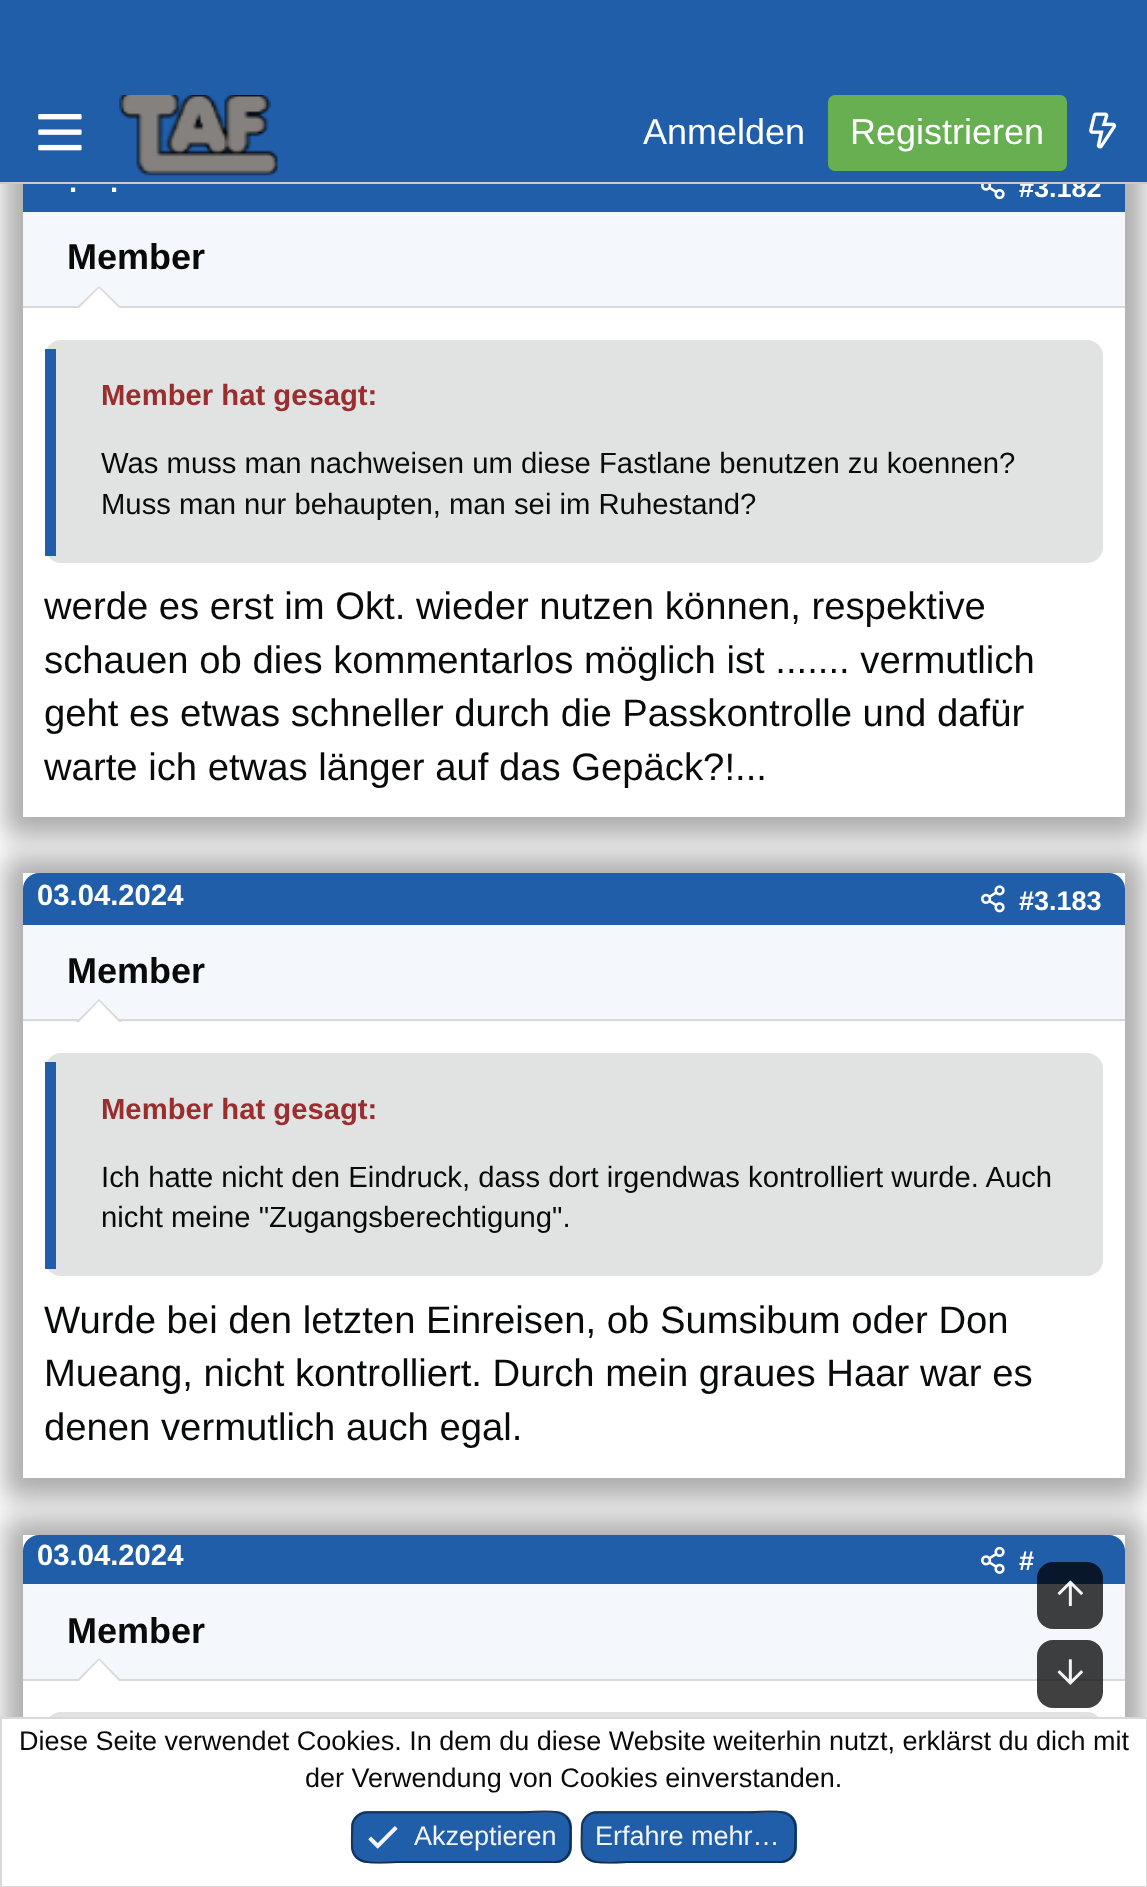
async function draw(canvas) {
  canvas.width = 1147
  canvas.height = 1887
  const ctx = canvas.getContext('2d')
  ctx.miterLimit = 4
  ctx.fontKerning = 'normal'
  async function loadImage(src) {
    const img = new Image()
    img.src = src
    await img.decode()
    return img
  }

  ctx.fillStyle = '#fff'
  ctx.fillRect(0, 0, 1147, 1887)
  ctx.fillStyle = '#00000052'
  ctx.filter = 'blur(13.5px)'
  ctx.beginPath()
  ctx.rect(5, 144, 1138, 693)
  ctx.fill()
  ctx.filter = 'none'
  ctx.fillStyle = '#205eaa'
  ctx.fillRect(23, 184, 1102, 28)
  ctx.font = 'bold 27px Liberation Sans'
  ctx.fillStyle = '#fff'
  ctx.fillText('#3.182', 1019, 197)
  ctx.fillStyle = '#205eaa'
  ctx.fillRect(0, 0, 1147, 182)
  ctx.drawImage(await loadImage('image0.png'), 38, 114, 44, 37)
  ctx.drawImage(await loadImage('image1.png'), 119, 95, 160, 81)
  ctx.font = '36px Liberation Sans'
  ctx.fillStyle = '#fff'
  ctx.fillText('Anmelden', 643, 144)
  ctx.fillStyle = '#67af51'
  ctx.beginPath()
  ctx.roundRect(828, 95, 239, 76, 7)
  ctx.fill()
  ctx.fillStyle = '#fff'
  ctx.fillText('Registrieren', 850, 144)
  ctx.drawImage(await loadImage('image2.png'), 1089, 112, 28, 37)
  ctx.fillStyle = '#ccc'
  ctx.fillRect(0, 182, 1147, 2)
  ctx.font = 'bold 29.25px Liberation Sans'
  ctx.fillStyle = '#fff'
  ctx.fillText('.', 69, 192)
  ctx.fillText('.', 110, 192)
  ctx.drawImage(await loadImage('image3.png'), 981, 184, 24, 16)
  ctx.fillStyle = '#f4f7fb'
  ctx.fillRect(23, 212, 1102, 94)
  ctx.fillStyle = '#d9d9d9'
  ctx.fillRect(23, 306, 1102, 2)
  ctx.font = 'bold 36px Liberation Sans'
  ctx.fillStyle = '#090a0a'
  ctx.fillText('Member', 67, 269)
  ctx.fillStyle = '#d9d9d9'
  ctx.beginPath()
  ctx.moveTo(122, 308)
  ctx.lineTo(76, 308)
  ctx.lineTo(99, 286)
  ctx.closePath()
  ctx.fill()
  ctx.fillStyle = '#fff'
  ctx.beginPath()
  ctx.moveTo(119, 308)
  ctx.lineTo(79, 308)
  ctx.lineTo(99, 288)
  ctx.closePath()
  ctx.fill()
  ctx.fillRect(23, 308, 1102, 509)
  ctx.fillStyle = '#e1e2e2'
  ctx.beginPath()
  ctx.roundRect(45, 340, 1058, 223, 16)
  ctx.fill()
  ctx.fillStyle = '#205eaa'
  ctx.fillRect(45, 349, 11, 207)
  ctx.font = 'bold 29.25px Liberation Sans'
  ctx.fillStyle = '#9a2e2e'
  ctx.fillText('Member hat gesagt:', 101, 405)
  ctx.font = '29.25px Liberation Sans'
  ctx.fillStyle = '#090a0a'
  ctx.fillText('Was muss man nachweisen um diese Fastlane benutzen zu koennen?', 101, 473)
  ctx.fillText('Muss man nur behaupten, man sei im Ruhestand?', 101, 514)
  ctx.font = '38.25px Liberation Sans'
  ctx.fillText('werde es erst im Okt. wieder nutzen können, respektive', 44, 619)
  ctx.fillText('schauen ob dies kommentarlos möglich ist ....... vermutlich', 44, 673)
  ctx.fillText('geht es etwas schneller durch die Passkontrolle und dafür', 44, 726)
  ctx.fillText('warte ich etwas länger auf das Gepäck?!...', 44, 780)
  ctx.save()
  ctx.beginPath()
  ctx.moveTo(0, 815)
  ctx.lineTo(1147, 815)
  ctx.lineTo(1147, 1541)
  ctx.lineTo(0, 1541)
  ctx.closePath()
  ctx.moveTo(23, 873)
  ctx.lineTo(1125, 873)
  ctx.lineTo(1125, 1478)
  ctx.lineTo(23, 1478)
  ctx.closePath()
  ctx.clip('evenodd')
  ctx.fillStyle = '#00000052'
  ctx.filter = 'blur(13.5px)'
  ctx.beginPath()
  ctx.rect(5, 857, 1138, 642)
  ctx.fill()
  ctx.filter = 'none'
  ctx.restore()
  ctx.fillStyle = '#205eaa'
  ctx.beginPath()
  ctx.roundRect(23, 873, 1102, 52, [16, 16, 0, 0])
  ctx.fill()
  ctx.font = 'bold 29.25px Liberation Sans'
  ctx.fillStyle = '#fff'
  ctx.fillText('03.04.2024', 37, 905)
  ctx.drawImage(await loadImage('image4.png'), 981, 885, 24, 28)
  ctx.font = 'bold 27px Liberation Sans'
  ctx.fillText('#3.183', 1019, 910)
  ctx.fillStyle = '#f4f7fb'
  ctx.fillRect(23, 925, 1102, 97)
  ctx.fillStyle = '#d9d9d9'
  ctx.fillRect(23, 1019, 1102, 2)
  ctx.font = 'bold 36px Liberation Sans'
  ctx.fillStyle = '#090a0a'
  ctx.fillText('Member', 67, 983)
  ctx.fillStyle = '#d9d9d9'
  ctx.beginPath()
  ctx.moveTo(122, 1022)
  ctx.lineTo(76, 1022)
  ctx.lineTo(99, 999)
  ctx.closePath()
  ctx.fill()
  ctx.fillStyle = '#fff'
  ctx.beginPath()
  ctx.moveTo(119, 1022)
  ctx.lineTo(79, 1022)
  ctx.lineTo(99, 1001)
  ctx.closePath()
  ctx.fill()
  ctx.fillStyle = '#e1e2e2'
  ctx.beginPath()
  ctx.roundRect(45, 1053, 1058, 223, 16)
  ctx.fill()
  ctx.fillStyle = '#205eaa'
  ctx.fillRect(45, 1062, 11, 207)
  ctx.font = 'bold 29.25px Liberation Sans'
  ctx.fillStyle = '#9a2e2e'
  ctx.fillText('Member hat gesagt:', 101, 1119)
  ctx.font = '29.25px Liberation Sans'
  ctx.fillStyle = '#090a0a'
  ctx.fillText('Ich hatte nicht den Eindruck, dass dort irgendwas kontrolliert wurde. Auch', 101, 1187)
  ctx.fillText('nicht meine "Zugangsberechtigung".', 101, 1227)
  ctx.font = '38.25px Liberation Sans'
  ctx.fillText('Wurde bei den letzten Einreisen, ob Sumsibum oder Don', 44, 1333)
  ctx.fillText('Mueang, nicht kontrolliert. Durch mein graues Haar war es', 44, 1386)
  ctx.fillText('denen vermutlich auch egal.', 44, 1440)
  ctx.save()
  ctx.beginPath()
  ctx.moveTo(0, 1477)
  ctx.lineTo(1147, 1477)
  ctx.lineTo(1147, 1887)
  ctx.lineTo(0, 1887)
  ctx.closePath()
  ctx.moveTo(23, 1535)
  ctx.lineTo(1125, 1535)
  ctx.lineTo(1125, 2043)
  ctx.lineTo(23, 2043)
  ctx.closePath()
  ctx.clip('evenodd')
  ctx.fillStyle = '#00000052'
  ctx.filter = 'blur(13.5px)'
  ctx.beginPath()
  ctx.rect(5, 1519, 1138, 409)
  ctx.fill()
  ctx.filter = 'none'
  ctx.restore()
  ctx.fillStyle = '#205eaa'
  ctx.beginPath()
  ctx.roundRect(23, 1535, 1102, 49, [16, 16, 0, 0])
  ctx.fill()
  ctx.font = 'bold 29.25px Liberation Sans'
  ctx.fillStyle = '#fff'
  ctx.fillText('03.04.2024', 37, 1565)
  ctx.drawImage(await loadImage('image5.png'), 981, 1546, 24, 28)
  ctx.font = 'bold 27px Liberation Sans'
  ctx.fillText('#', 1019, 1570)
  ctx.fillStyle = '#f4f7fb'
  ctx.fillRect(23, 1584, 1102, 95)
  ctx.fillStyle = '#d9d9d9'
  ctx.fillRect(23, 1679, 1102, 2)
  ctx.font = 'bold 36px Liberation Sans'
  ctx.fillStyle = '#090a0a'
  ctx.fillText('Member', 67, 1643)
  ctx.fillStyle = '#d9d9d9'
  ctx.beginPath()
  ctx.moveTo(122, 1681)
  ctx.lineTo(76, 1681)
  ctx.lineTo(99, 1658)
  ctx.closePath()
  ctx.fill()
  ctx.fillStyle = '#fff'
  ctx.beginPath()
  ctx.moveTo(119, 1681)
  ctx.lineTo(79, 1681)
  ctx.lineTo(99, 1660)
  ctx.closePath()
  ctx.fill()
  ctx.fillStyle = '#e1e2e2'
  ctx.beginPath()
  ctx.roundRect(45, 1712, 1058, 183, 16)
  ctx.fill()
  ctx.fillStyle = '#000000bf'
  ctx.beginPath()
  ctx.roundRect(1037, 1562, 66, 67, 16)
  ctx.fill()
  ctx.drawImage(await loadImage('image6.png'), 1057, 1580, 26, 27)
  ctx.beginPath()
  ctx.roundRect(1037, 1640, 66, 68, 16)
  ctx.fill()
  ctx.drawImage(await loadImage('image7.png'), 1057, 1659, 26, 26)
  ctx.fillStyle = '#fff'
  ctx.beginPath()
  ctx.rect(1, 1718, 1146, 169)
  ctx.fill()
  ctx.strokeStyle = '#d9d9d9'
  ctx.lineWidth = 2
  ctx.stroke()
  ctx.font = '27px Liberation Sans'
  ctx.fillStyle = '#090a0a'
  ctx.fillText('Diese Seite verwendet Cookies. In dem du diese Website weiterhin nutzt, erklärst du dich mit', 19, 1750)
  ctx.fillText('der Verwendung von Cookies einverstanden.', 305, 1787)
  ctx.fillStyle = '#205eaa'
  ctx.beginPath()
  ctx.roundRect(351, 1811, 221, 52, 16)
  ctx.fill()
  ctx.beginPath()
  ctx.moveTo(566, 1816.5)
  ctx.bezierCurveTo(571.5, 1822, 570.5, 1830, 570.5, 1837)
  ctx.lineTo(570, 1850)
  ctx.bezierCurveTo(568.5, 1857, 562.5, 1862, 556, 1862)
  ctx.lineTo(398, 1862)
  ctx.bezierCurveTo(394, 1862, 365.5, 1866.5, 356.5, 1857.5)
  ctx.strokeStyle = '#00000080'
  ctx.lineWidth = 2.2
  ctx.stroke()
  ctx.beginPath()
  ctx.moveTo(356.5, 1857.5)
  ctx.bezierCurveTo(351, 1852, 352, 1844.5, 352, 1837)
  ctx.lineTo(352.5, 1824)
  ctx.bezierCurveTo(354, 1817.5, 360, 1812.5, 367, 1812.5)
  ctx.lineTo(524, 1812.5)
  ctx.bezierCurveTo(528.5, 1812.5, 557, 1807.5, 566, 1816.5)
  ctx.strokeStyle = '#0d0d0d80'
  ctx.stroke()
  ctx.drawImage(await loadImage('image8.png'), 368, 1826, 30, 23)
  ctx.fillStyle = '#f4f5f5'
  ctx.fillText('Akzeptieren', 414, 1845)
  ctx.fillStyle = '#205eaa'
  ctx.beginPath()
  ctx.roundRect(581, 1811, 216, 52, 16)
  ctx.fill()
  ctx.beginPath()
  ctx.moveTo(791, 1816.5)
  ctx.bezierCurveTo(796.5, 1822, 795.5, 1830, 795.5, 1837)
  ctx.lineTo(795, 1850)
  ctx.bezierCurveTo(793.5, 1857, 787.5, 1862, 781, 1862)
  ctx.lineTo(627, 1862)
  ctx.bezierCurveTo(622.5, 1862, 595, 1866.5, 586, 1857.5)
  ctx.strokeStyle = '#00000080'
  ctx.stroke()
  ctx.beginPath()
  ctx.moveTo(586, 1857.5)
  ctx.bezierCurveTo(580.5, 1852, 581.5, 1844.5, 581.5, 1837)
  ctx.lineTo(582, 1824)
  ctx.bezierCurveTo(583.5, 1817.5, 589.5, 1812.5, 596, 1812.5)
  ctx.lineTo(750, 1812.5)
  ctx.bezierCurveTo(754.5, 1812.5, 782, 1807.5, 791, 1816.5)
  ctx.strokeStyle = '#0d0d0d80'
  ctx.stroke()
  ctx.fillStyle = '#f4f5f5'
  ctx.fillText('Erfahre mehr…', 595, 1845)
}

draw(document.querySelector('canvas'))
